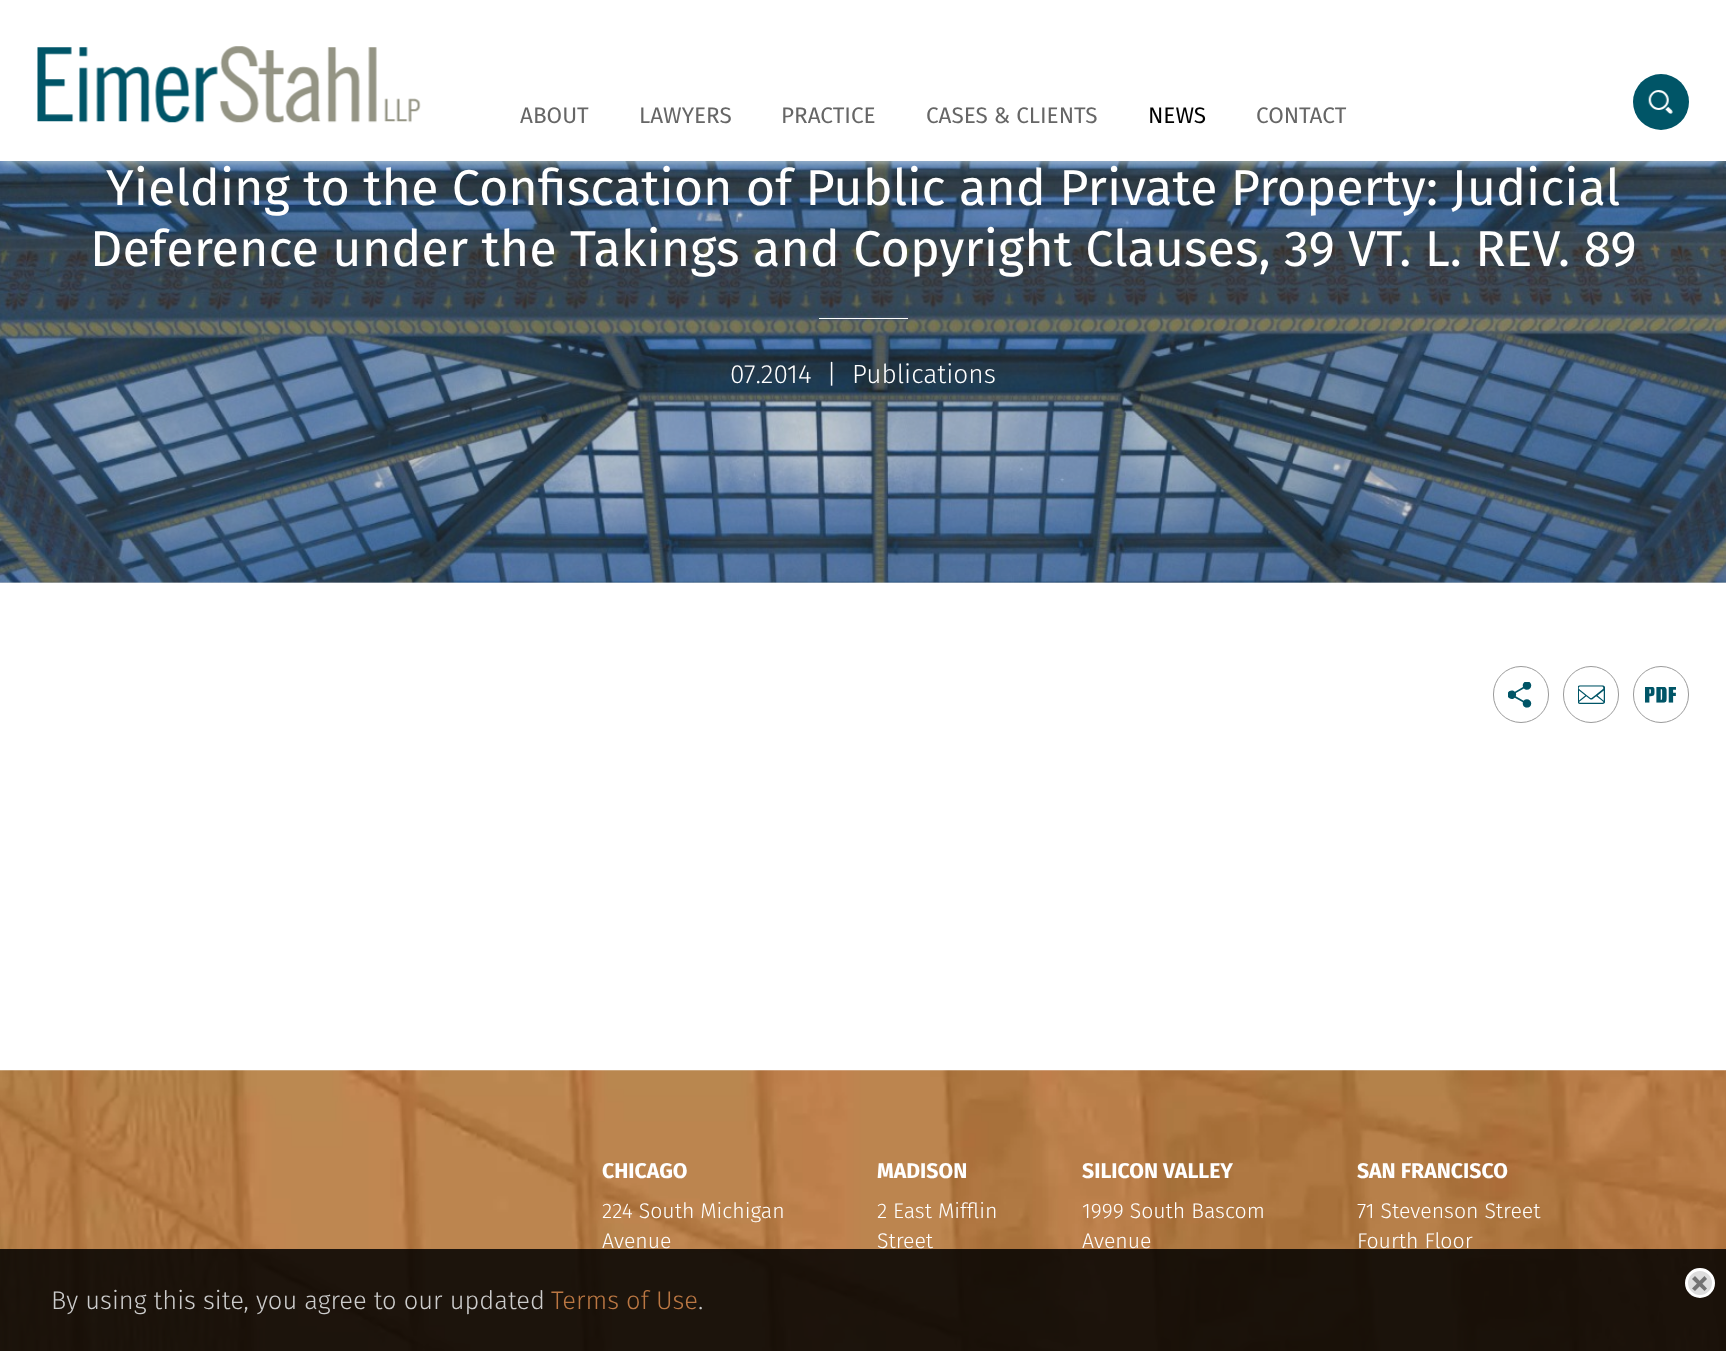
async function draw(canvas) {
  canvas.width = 1726
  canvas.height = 1351
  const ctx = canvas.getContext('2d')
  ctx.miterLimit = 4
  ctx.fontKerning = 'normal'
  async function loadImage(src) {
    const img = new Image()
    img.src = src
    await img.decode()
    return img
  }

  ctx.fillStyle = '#fff'
  ctx.fillRect(0, 0, 1726, 1351)
  ctx.fillStyle = '#ccd0d3'
  ctx.fillRect(0, 582, 1726, 1)
  ctx.drawImage(await loadImage('image2.png'), 0, 161, 1726, 422)
  ctx.fillStyle = '#cee0e1'
  ctx.filter = 'blur(6px)'
  ctx.beginPath()
  ctx.rect(0, 0, 1726, 161)
  ctx.fill()
  ctx.filter = 'none'
  ctx.fillStyle = '#fff'
  ctx.fillRect(0, 0, 1726, 161)
  ctx.drawImage(await loadImage('image0.png'), 37, 46, 384, 77)
  ctx.font = '22.5px Fira Sans'
  ctx.fillStyle = '#666'
  ctx.fillText('ABOUT', 520, 123)
  ctx.fillText('LAWYERS', 639, 123)
  ctx.fillText('PRACTICE', 781, 123)
  ctx.fillText('CASES & CLIENTS', 926, 123)
  ctx.fillStyle = '#000'
  ctx.fillText('NEWS', 1148, 123)
  ctx.fillStyle = '#666'
  ctx.fillText('CONTACT', 1256, 123)
  ctx.fillStyle = '#005567'
  ctx.beginPath()
  ctx.arc(1661, 102, 28, 0, 2 * Math.PI)
  ctx.fill()
  ctx.drawImage(await loadImage('image1.png'), 1648, 90, 25, 24)
  ctx.font = '50.35px Fira Sans'
  ctx.fillStyle = '#fff'
  ctx.fillText('Yielding to the Confiscation of Public and Private Property: Judicial', 106, 205)
  ctx.fillText('Deference under the Takings and Copyright Clauses, 39 VT. L. REV. 89', 90, 266)
  ctx.fillRect(819, 318, 89, 1)
  ctx.font = '300 26.25px Fira Sans'
  ctx.fillText('07.2014  |', 730, 383)
  ctx.fillText('Publications', 852, 383)
  ctx.beginPath()
  ctx.roundRect(1493.5, 666.5, 55, 56, 27.5)
  ctx.strokeStyle = '#9b9b9b'
  ctx.stroke()
  ctx.drawImage(await loadImage('image3.png'), 1508, 682, 24, 26)
  ctx.beginPath()
  ctx.roundRect(1563.5, 666.5, 55, 56, 27.5)
  ctx.stroke()
  ctx.drawImage(await loadImage('image4.png'), 1578, 685, 27, 19)
  ctx.beginPath()
  ctx.roundRect(1633.5, 666.5, 55, 56, 27.5)
  ctx.stroke()
  ctx.drawImage(await loadImage('image5.png'), 1645, 687, 31, 16)
  ctx.drawImage(await loadImage('image6.png'), 0, 1070, 1726, 281)
  ctx.font = 'bold 21.25px Fira Sans'
  ctx.fillText('CHICAGO', 602, 1178)
  ctx.font = '300 21.25px Fira Sans'
  ctx.fillText('224 South Michigan', 602, 1218)
  ctx.fillText('Avenue', 602, 1248)
  ctx.font = 'bold 21.25px Fira Sans'
  ctx.fillText('MADISON', 877, 1178)
  ctx.font = '300 21.25px Fira Sans'
  ctx.fillText('2 East Mifflin', 877, 1218)
  ctx.fillText('Street', 877, 1248)
  ctx.font = 'bold 21.25px Fira Sans'
  ctx.fillText('SILICON VALLEY', 1082, 1178)
  ctx.font = '300 21.25px Fira Sans'
  ctx.fillText('1999 South Bascom', 1082, 1218)
  ctx.fillText('Avenue', 1082, 1248)
  ctx.font = 'bold 21.25px Fira Sans'
  ctx.fillText('SAN FRANCISCO', 1357, 1178)
  ctx.font = '300 21.25px Fira Sans'
  ctx.fillText('71 Stevenson Street', 1357, 1218)
  ctx.fillText('Fourth Floor', 1357, 1248)
  ctx.fillStyle = '#000000d9'
  ctx.fillRect(0, 1249, 1726, 102)
  ctx.fillStyle = '#ddd'
  ctx.beginPath()
  ctx.arc(1700, 1283, 13.5, 0, 2 * Math.PI)
  ctx.fill()
  ctx.strokeStyle = '#fff'
  ctx.lineWidth = 3
  ctx.stroke()
  ctx.fillStyle = '#737373'
  ctx.beginPath()
  ctx.moveTo(1692, 1288.5)
  ctx.lineTo(1704.5, 1276)
  ctx.lineTo(1707, 1279)
  ctx.lineTo(1695, 1291)
  ctx.closePath()
  ctx.fill()
  ctx.beginPath()
  ctx.moveTo(1695, 1276)
  ctx.lineTo(1707, 1288.5)
  ctx.lineTo(1704.5, 1291)
  ctx.lineTo(1692, 1279)
  ctx.closePath()
  ctx.fill()
  ctx.font = '300 25.5px Fira Sans'
  ctx.fillStyle = '#ccc'
  ctx.fillText('By using this site, you agree to our updated', 51, 1309)
  ctx.fillStyle = '#bb7743'
  ctx.fillText('Terms of Use', 551, 1309)
  ctx.fillStyle = '#ccc'
  ctx.fillText('.', 698, 1309)
}

draw(document.querySelector('canvas'))
